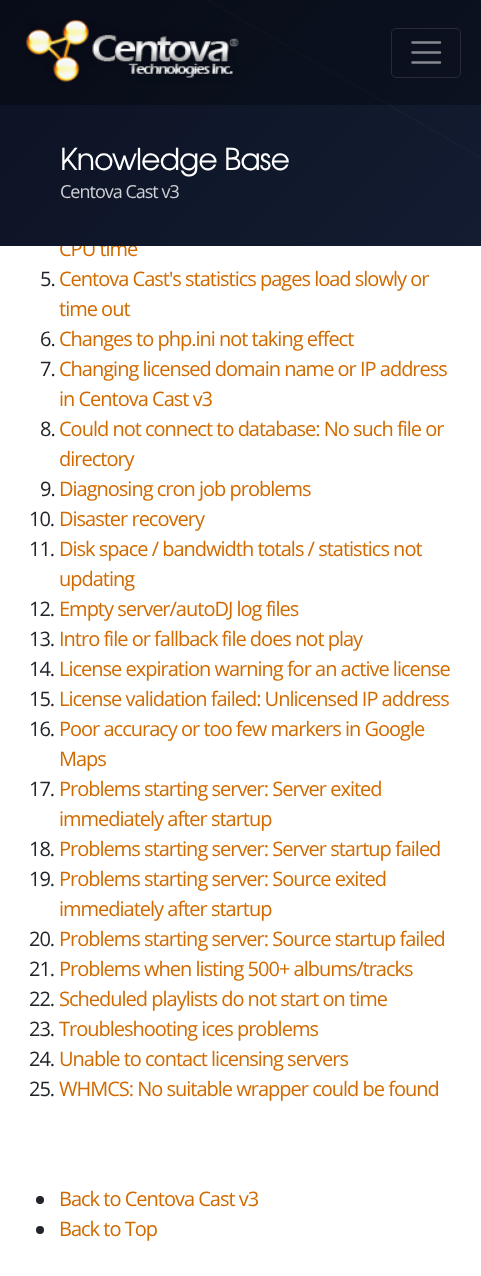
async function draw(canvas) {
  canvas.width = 481
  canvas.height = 1276
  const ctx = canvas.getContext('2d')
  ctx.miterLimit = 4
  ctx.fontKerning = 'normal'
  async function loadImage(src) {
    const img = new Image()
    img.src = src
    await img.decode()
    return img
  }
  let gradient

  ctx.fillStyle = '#fff'
  ctx.fillRect(0, 0, 481, 1276)
  ctx.letterSpacing = '-1px'
  ctx.font = '20px Open Sans'
  ctx.fillStyle = '#d16a00'
  ctx.fillText('CPU time', 59, 256)
  gradient = ctx.createLinearGradient(423, 305, 59, -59)
  gradient.addColorStop(0, '#131c31')
  gradient.addColorStop(1, '#0c1223')
  ctx.fillStyle = gradient
  ctx.fillRect(0, 0, 481, 246)
  ctx.fillStyle = '#ffffff08'
  ctx.beginPath()
  ctx.moveTo(70, -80)
  ctx.lineTo(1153, 545)
  ctx.lineTo(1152, 546)
  ctx.lineTo(69, -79)
  ctx.closePath()
  ctx.fill()
  gradient = ctx.createLinearGradient(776, 638, 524, -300)
  gradient.addColorStop(0, '#1d2537')
  gradient.addColorStop(1, '#192033')
  ctx.fillStyle = gradient
  ctx.beginPath()
  ctx.moveTo(140, -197)
  ctx.lineTo(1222, 428)
  ctx.lineTo(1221, 429)
  ctx.lineTo(139, -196)
  ctx.closePath()
  ctx.fill()
  ctx.fillStyle = '#262d3f'
  ctx.beginPath()
  ctx.moveTo(140, -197)
  ctx.lineTo(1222, 428)
  ctx.lineTo(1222, 429)
  ctx.lineTo(139, -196)
  ctx.closePath()
  ctx.fill()
  ctx.fillStyle = '#0000004d'
  ctx.fillRect(0, 0, 481, 105)
  ctx.drawImage(await loadImage('image0.png'), 25, 19, 214, 64)
  ctx.beginPath()
  ctx.roundRect(391.5, 28.5, 69, 49, 4.5)
  ctx.strokeStyle = '#262b37'
  ctx.stroke()
  ctx.beginPath()
  ctx.moveTo(412.5, 42.5)
  ctx.lineTo(440, 42.5)
  ctx.moveTo(412.5, 52.5)
  ctx.lineTo(440, 52.5)
  ctx.moveTo(412.5, 62.5)
  ctx.lineTo(440, 62.5)
  ctx.strokeStyle = '#878990'
  ctx.lineWidth = 2.5
  ctx.lineCap = 'round'
  ctx.stroke()
  ctx.font = '30px TeX Gyre Adventor'
  ctx.fillStyle = '#fff'
  ctx.fillText('Knowledge Base', 60, 170)
  ctx.font = '18px Open Sans'
  ctx.fillStyle = '#cfd0d4'
  ctx.fillText('Centova Cast v3', 60, 198)
  ctx.font = '20px Open Sans'
  ctx.fillStyle = '#212529'
  ctx.fillText('5.', 40, 286)
  ctx.fillStyle = '#d16a00'
  ctx.fillText('Centova Cast\'s statistics pages load slowly or', 59, 286)
  ctx.fillText('time out', 59, 316)
  ctx.fillStyle = '#212529'
  ctx.fillText('6.', 40, 346)
  ctx.fillStyle = '#d16a00'
  ctx.fillText('Changes to php.ini not taking effect', 59, 346)
  ctx.fillStyle = '#212529'
  ctx.fillText('7.', 40, 376)
  ctx.fillStyle = '#d16a00'
  ctx.fillText('Changing licensed domain name or IP address', 59, 376)
  ctx.fillText('in Centova Cast v3', 59, 406)
  ctx.fillStyle = '#212529'
  ctx.fillText('8.', 40, 436)
  ctx.fillStyle = '#d16a00'
  ctx.fillText('Could not connect to database: No such file or', 59, 436)
  ctx.fillText('directory', 59, 466)
  ctx.fillStyle = '#212529'
  ctx.fillText('9.', 40, 496)
  ctx.fillStyle = '#d16a00'
  ctx.fillText('Diagnosing cron job problems', 59, 496)
  ctx.fillStyle = '#212529'
  ctx.fillText('10.', 29, 526)
  ctx.fillStyle = '#d16a00'
  ctx.fillText('Disaster recovery', 59, 526)
  ctx.fillStyle = '#212529'
  ctx.fillText('11.', 29, 556)
  ctx.fillStyle = '#d16a00'
  ctx.fillText('Disk space / bandwidth totals / statistics not', 59, 556)
  ctx.fillText('updating', 59, 586)
  ctx.fillStyle = '#212529'
  ctx.fillText('12.', 29, 616)
  ctx.fillStyle = '#d16a00'
  ctx.fillText('Empty server/autoDJ log files', 59, 616)
  ctx.fillStyle = '#212529'
  ctx.fillText('13.', 29, 646)
  ctx.fillStyle = '#d16a00'
  ctx.fillText('Intro file or fallback file does not play', 59, 646)
  ctx.fillStyle = '#212529'
  ctx.fillText('14.', 29, 676)
  ctx.fillStyle = '#d16a00'
  ctx.fillText('License expiration warning for an active license', 59, 676)
  ctx.fillStyle = '#212529'
  ctx.fillText('15.', 29, 706)
  ctx.fillStyle = '#d16a00'
  ctx.fillText('License validation failed: Unlicensed IP address', 59, 706)
  ctx.fillStyle = '#212529'
  ctx.fillText('16.', 29, 736)
  ctx.fillStyle = '#d16a00'
  ctx.fillText('Poor accuracy or too few markers in Google', 59, 736)
  ctx.fillText('Maps', 59, 766)
  ctx.fillStyle = '#212529'
  ctx.fillText('17.', 29, 796)
  ctx.fillStyle = '#d16a00'
  ctx.fillText('Problems starting server: Server exited', 59, 796)
  ctx.fillText('immediately after startup', 59, 826)
  ctx.fillStyle = '#212529'
  ctx.fillText('18.', 29, 856)
  ctx.fillStyle = '#d16a00'
  ctx.fillText('Problems starting server: Server startup failed', 59, 856)
  ctx.fillStyle = '#212529'
  ctx.fillText('19.', 29, 886)
  ctx.fillStyle = '#d16a00'
  ctx.fillText('Problems starting server: Source exited', 59, 886)
  ctx.fillText('immediately after startup', 59, 916)
  ctx.fillStyle = '#212529'
  ctx.fillText('20.', 29, 946)
  ctx.fillStyle = '#d16a00'
  ctx.fillText('Problems starting server: Source startup failed', 59, 946)
  ctx.fillStyle = '#212529'
  ctx.fillText('21.', 29, 976)
  ctx.fillStyle = '#d16a00'
  ctx.fillText('Problems when listing 500+ albums/tracks', 59, 976)
  ctx.fillStyle = '#212529'
  ctx.fillText('22.', 29, 1006)
  ctx.fillStyle = '#d16a00'
  ctx.fillText('Scheduled playlists do not start on time', 59, 1006)
  ctx.fillStyle = '#212529'
  ctx.fillText('23.', 29, 1036)
  ctx.fillStyle = '#d16a00'
  ctx.fillText('Troubleshooting ices problems', 59, 1036)
  ctx.fillStyle = '#212529'
  ctx.fillText('24.', 29, 1066)
  ctx.fillStyle = '#d16a00'
  ctx.fillText('Unable to contact licensing servers', 59, 1066)
  ctx.fillStyle = '#212529'
  ctx.fillText('25.', 29, 1096)
  ctx.fillStyle = '#d16a00'
  ctx.fillText('WHMCS: No suitable wrapper could be found', 59, 1096)
  ctx.fillStyle = '#212529'
  ctx.beginPath()
  ctx.arc(40, 1200, 4, 0, 2 * Math.PI)
  ctx.fill()
  ctx.fillStyle = '#d16a00'
  ctx.fillText('Back to Centova Cast v3', 59, 1206)
  ctx.fillStyle = '#212529'
  ctx.beginPath()
  ctx.arc(40, 1230, 4, 0, 2 * Math.PI)
  ctx.fill()
  ctx.fillStyle = '#d16a00'
  ctx.fillText('Back to Top', 59, 1236)
}

draw(document.querySelector('canvas'))
